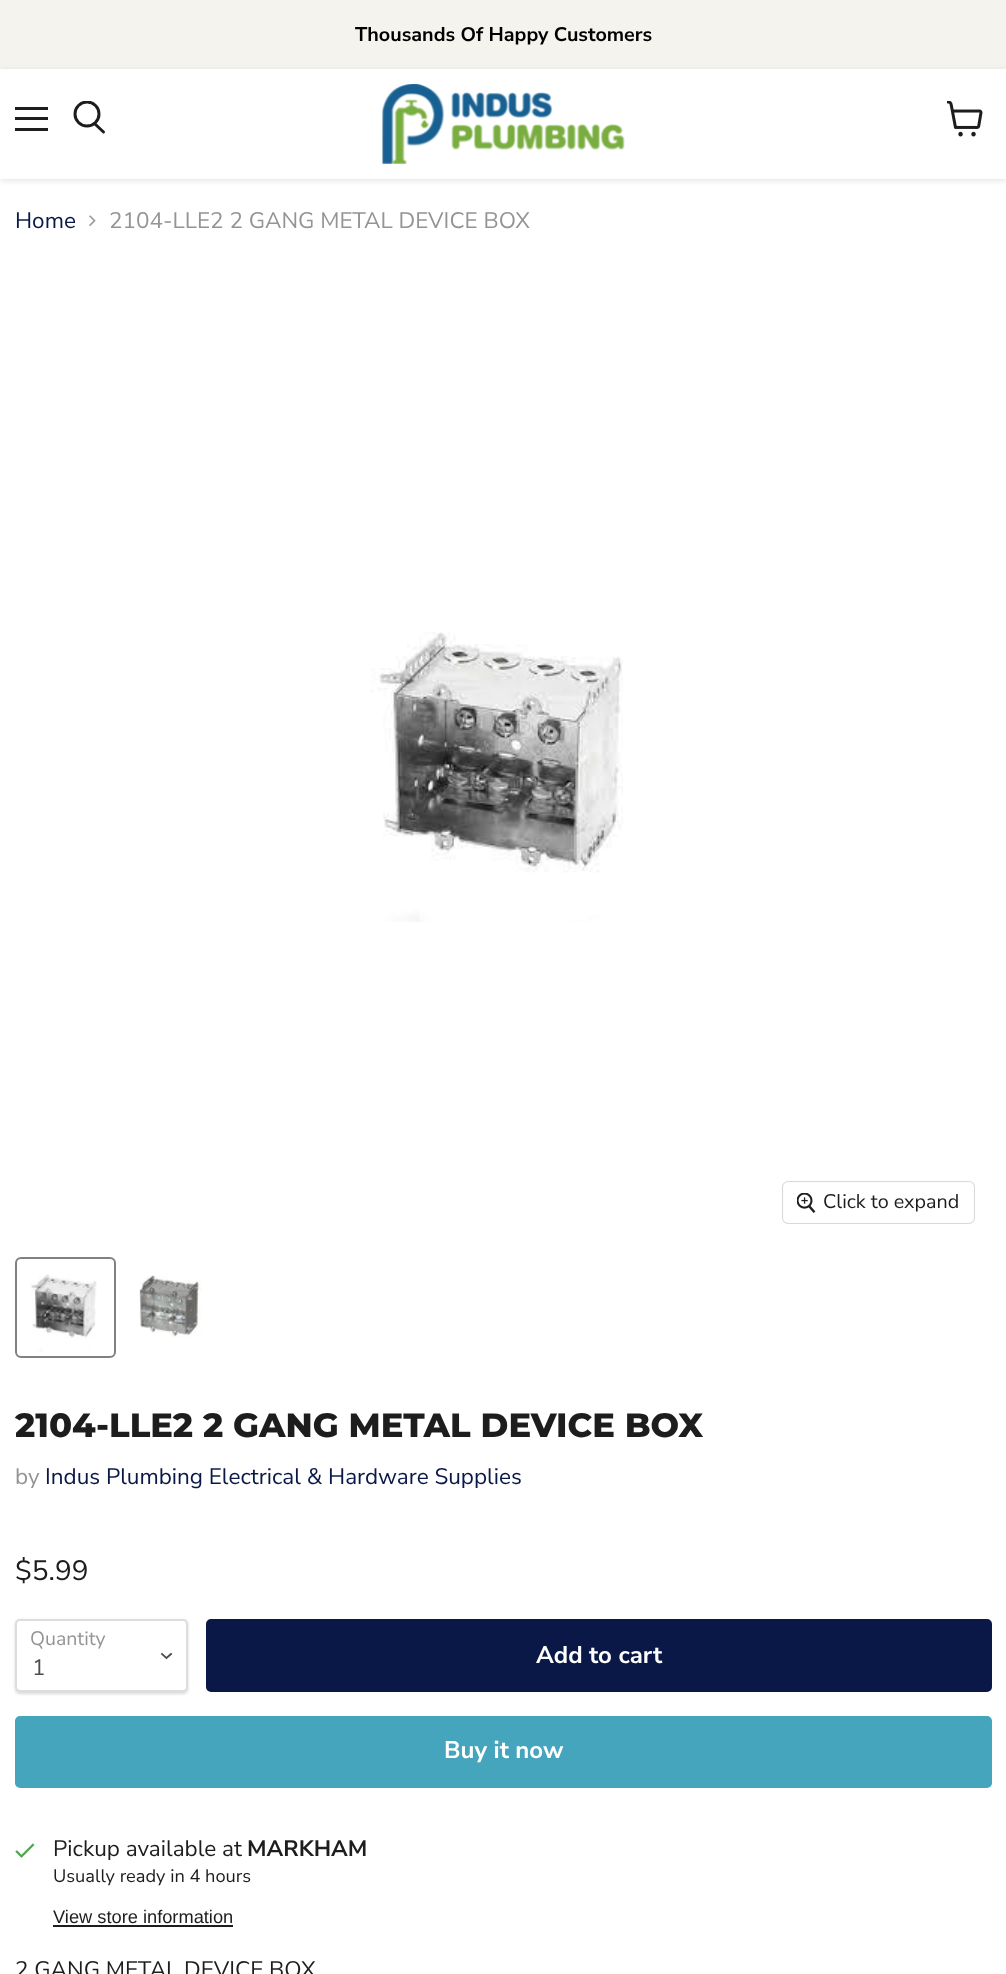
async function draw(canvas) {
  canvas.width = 1006
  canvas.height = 1974
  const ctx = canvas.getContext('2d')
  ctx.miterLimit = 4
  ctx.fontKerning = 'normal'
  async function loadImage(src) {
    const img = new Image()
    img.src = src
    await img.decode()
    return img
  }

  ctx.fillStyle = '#fff'
  ctx.fillRect(0, 0, 1006, 1974)
  ctx.fillStyle = '#f5f3ed'
  ctx.fillRect(0, 0, 1006, 69)
  ctx.font = 'bold 19.75px Nunito Sans'
  ctx.fillStyle = '#000'
  ctx.fillText('Thousands Of Happy Customers', 355, 41)
  ctx.fillStyle = '#80808040'
  ctx.filter = 'blur(3px)'
  ctx.beginPath()
  ctx.rect(0, 71, 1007, 109)
  ctx.fill()
  ctx.filter = 'none'
  ctx.fillStyle = '#fff'
  ctx.fillRect(0, 69, 1006, 110)
  ctx.fillStyle = '#1d1d1d'
  ctx.fillRect(15, 107, 33, 3)
  ctx.fillRect(15, 117, 33, 3)
  ctx.fillRect(15, 128, 33, 3)
  ctx.beginPath()
  ctx.moveTo(103.5, 132)
  ctx.lineTo(95, 124)
  ctx.strokeStyle = '#1d1d1d'
  ctx.lineWidth = 3
  ctx.lineCap = 'round'
  ctx.stroke()
  ctx.save()
  ctx.beginPath()
  ctx.rect(72, 101, 35, 36)
  ctx.clip()
  ctx.beginPath()
  ctx.arc(87, 114, 12, 0, 2 * Math.PI)
  ctx.stroke()
  ctx.restore()
  ctx.drawImage(await loadImage('image0.png'), 382, 84, 243, 80)
  ctx.drawImage(await loadImage('image1.png'), 947, 101, 36, 36)
  ctx.font = '22.5px Nunito Sans'
  ctx.fillStyle = '#0a1847'
  ctx.fillText('Home', 15, 228)
  ctx.drawImage(await loadImage('image2.png'), 89, 215, 7, 11)
  ctx.fillStyle = '#949494'
  ctx.fillText('2104-LLE2 2 GANG METAL DEVICE BOX', 109, 228)
  ctx.drawImage(await loadImage('image3.png'), 371, 632, 252, 290)
  ctx.beginPath()
  ctx.roundRect(783, 1182, 191, 41, 5)
  ctx.strokeStyle = '#d9d9d9'
  ctx.lineWidth = 2
  ctx.stroke()
  ctx.fillStyle = '#ffffffe6'
  ctx.beginPath()
  ctx.roundRect(783, 1182, 191, 41, 5)
  ctx.fill()
  ctx.drawImage(await loadImage('image4.png'), 797, 1193, 19, 20)
  ctx.font = '19.75px Nunito Sans'
  ctx.fillStyle = '#1d1d1d'
  ctx.fillText('Click to expand', 823, 1208)
  ctx.beginPath()
  ctx.roundRect(16, 1258, 99, 99, 5)
  ctx.strokeStyle = '#818181'
  ctx.stroke()
  ctx.drawImage(await loadImage('image5.png'), 30, 1274, 67, 78)
  ctx.drawImage(await loadImage('image6.png'), 139, 1275, 63, 63)
  ctx.font = '800 33.75px Montserrat'
  ctx.fillText('2104-LLE2 2 GANG METAL DEVICE BOX', 15, 1437)
  ctx.font = '22.5px Nunito Sans'
  ctx.fillStyle = '#949494'
  ctx.fillText('by', 15, 1484)
  ctx.fillStyle = '#0a1847'
  ctx.fillText('Indus Plumbing Electrical & Hardware Supplies', 45, 1484)
  ctx.font = '28px Nunito Sans'
  ctx.fillStyle = '#1d1d1d'
  ctx.fillText('$5.99', 15, 1580)
  ctx.fillStyle = '#00000026'
  ctx.filter = 'blur(1.5px)'
  ctx.beginPath()
  ctx.roundRect(15, 1620, 173, 74, 5)
  ctx.fill()
  ctx.filter = 'none'
  ctx.fillStyle = '#fff'
  ctx.beginPath()
  ctx.roundRect(16, 1620, 171, 71, 4)
  ctx.fill()
  ctx.strokeStyle = '#ddd'
  ctx.stroke()
  ctx.font = '19.5px Nunito Sans'
  ctx.fillStyle = '#949494'
  ctx.fillText('Quantity', 30, 1645)
  ctx.beginPath()
  ctx.moveTo(166.5, 1658)
  ctx.lineTo(171, 1654)
  ctx.moveTo(166.5, 1658)
  ctx.lineTo(162, 1654)
  ctx.strokeStyle = '#4d4d4d'
  ctx.lineWidth = 1.9
  ctx.lineCap = 'square'
  ctx.stroke()
  ctx.font = '22.5px Nunito Sans'
  ctx.fillStyle = '#4d4d4d'
  ctx.fillText('1', 32, 1675)
  ctx.fillStyle = '#0a1847'
  ctx.beginPath()
  ctx.roundRect(207, 1620, 784, 71, 4)
  ctx.fill()
  ctx.strokeStyle = '#0a1847'
  ctx.lineWidth = 2
  ctx.stroke()
  ctx.font = 'bold 24px Nunito Sans'
  ctx.fillStyle = '#fff'
  ctx.fillText('Add to cart', 536, 1663)
  ctx.fillStyle = '#45a5bd'
  ctx.beginPath()
  ctx.roundRect(16, 1717, 975, 70, 4)
  ctx.fill()
  ctx.strokeStyle = '#45a5bd'
  ctx.stroke()
  ctx.fillStyle = '#fff'
  ctx.fillText('Buy it now', 444, 1758)
  ctx.drawImage(await loadImage('image7.png'), 15, 1843, 20, 15)
  ctx.font = '22.5px Nunito Sans'
  ctx.fillStyle = '#1d1d1d'
  ctx.fillText('Pickup available at', 53, 1856)
  ctx.font = 'bold 22.5px Nunito Sans'
  ctx.fillText('MARKHAM', 247, 1856)
  ctx.font = '18.25px Nunito Sans'
  ctx.fillText('Usually ready in 4 hours', 53, 1882)
  ctx.font = '18.25px Liberation Sans'
  ctx.fillText('View store information', 53, 1923)
  ctx.fillRect(53, 1925, 180, 2)
  ctx.font = '22.5px Nunito Sans'
  ctx.fillText('2 GANG METAL DEVICE BOX', 15, 1977)
}

draw(document.querySelector('canvas'))
